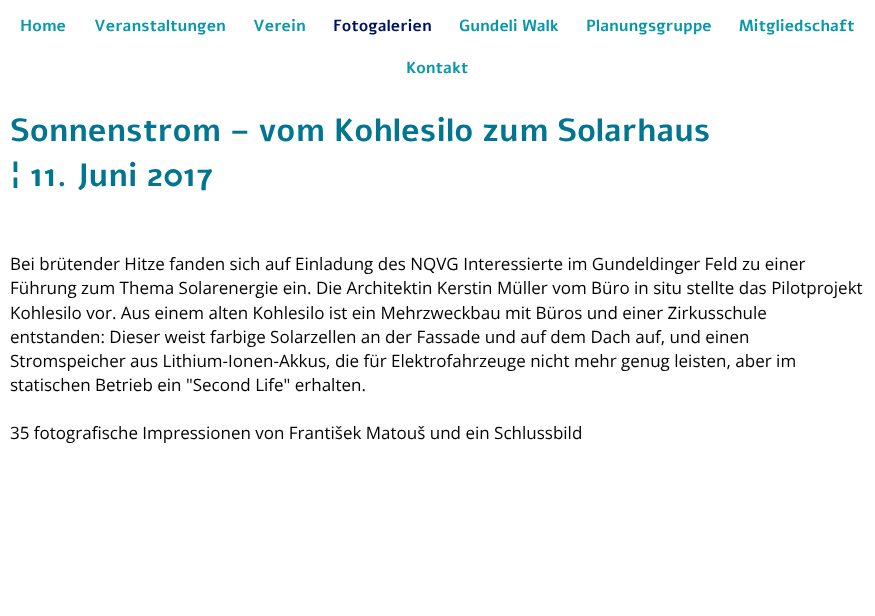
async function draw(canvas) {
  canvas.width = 875
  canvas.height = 616
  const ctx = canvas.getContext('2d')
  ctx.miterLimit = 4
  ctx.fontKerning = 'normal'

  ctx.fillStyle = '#fff'
  ctx.fillRect(0, 0, 875, 616)
  ctx.font = 'bold 16px Alef'
  ctx.fillStyle = '#0998ab'
  ctx.fillText('Home', 20, 31)
  ctx.fillText('Veranstaltungen', 94, 31)
  ctx.fillText('Verein', 253, 31)
  ctx.fillStyle = '#016'
  ctx.fillText('Fotogalerien', 333, 31)
  ctx.fillStyle = '#0998ab'
  ctx.fillText('Gundeli Walk', 459, 31)
  ctx.fillText('Planungsgruppe', 586, 31)
  ctx.fillText('Mitgliedschaft', 739, 31)
  ctx.fillText('Kontakt', 406, 73)
  ctx.font = 'bold 32px Alef'
  ctx.fillStyle = '#017591'
  ctx.fillText('Sonnenstrom – vom Kohlesilo zum Solarhaus', 10, 141)
  ctx.fillText('¦ 11. Juni 2017', 10, 186)
  ctx.font = '17px Open Sans'
  ctx.fillStyle = '#000'
  ctx.fillText('Bei brütender Hitze fanden sich auf Einladung des NQVG Interessierte im Gundeldinger Feld zu einer', 10, 270)
  ctx.fillText('Führung zum Thema Solarenergie ein. Die Architektin Kerstin Müller vom Büro in situ stellte das Pilotprojekt', 10, 294)
  ctx.fillText('Kohlesilo vor. Aus einem alten Kohlesilo ist ein Mehrzweckbau mit Büros und einer Zirkusschule', 10, 319)
  ctx.fillText('entstanden: Dieser weist farbige Solarzellen an der Fassade und auf dem Dach auf, und einen', 10, 343)
  ctx.fillText('Stromspeicher aus Lithium-Ionen-Akkus, die für Elektrofahrzeuge nicht mehr genug leisten, aber im', 10, 367)
  ctx.fillText('statischen Betrieb ein "Second Life" erhalten.', 10, 391)
  ctx.fillText('35 fotografische Impressionen von František Matouš und ein Schlussbild', 10, 439)
}

draw(document.querySelector('canvas'))
